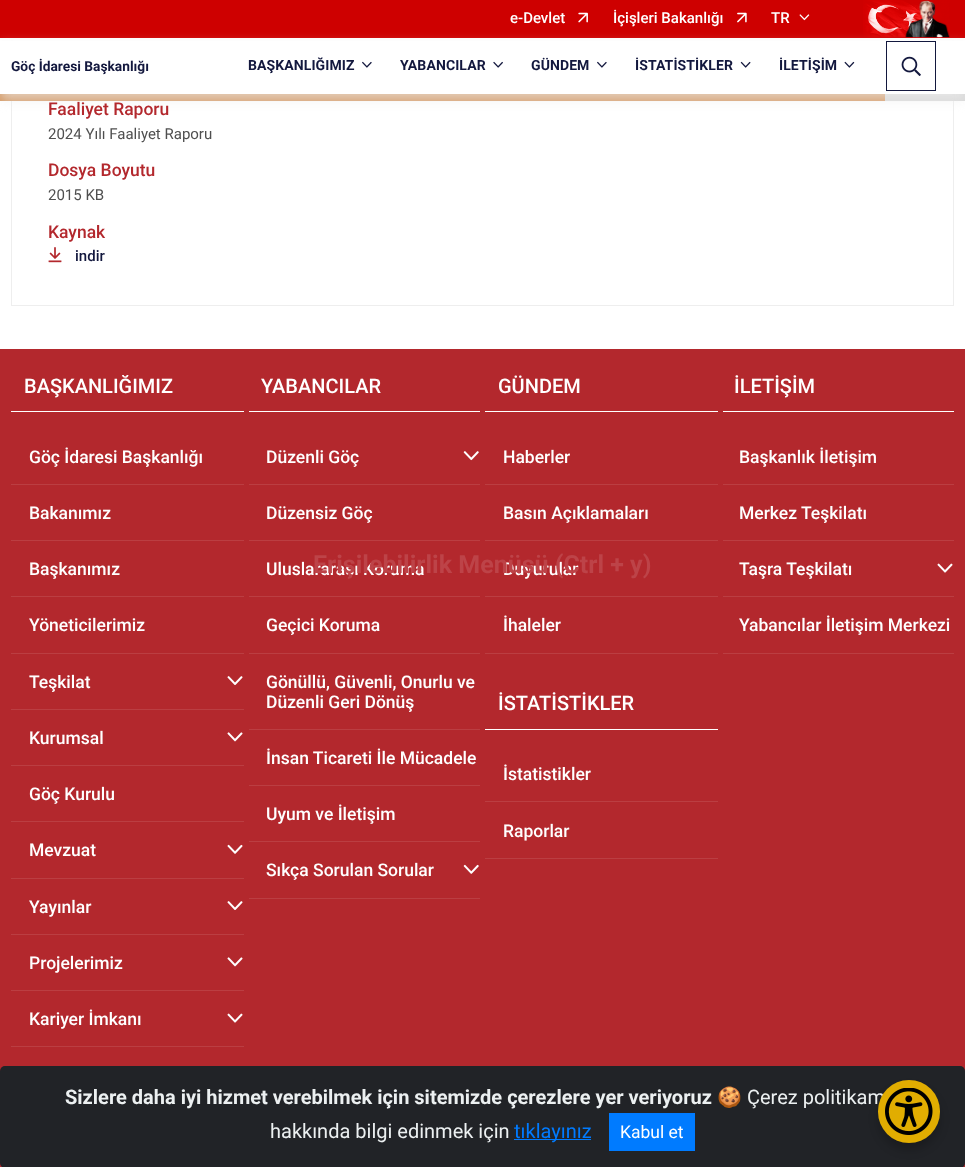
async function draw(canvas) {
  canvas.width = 965
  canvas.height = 1167
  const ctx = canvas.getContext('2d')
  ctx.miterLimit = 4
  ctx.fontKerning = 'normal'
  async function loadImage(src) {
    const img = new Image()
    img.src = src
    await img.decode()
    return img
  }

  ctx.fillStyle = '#fff'
  ctx.fillRect(0, 0, 965, 1167)
  ctx.fillStyle = '#ce0000'
  ctx.fillRect(0, 0, 965, 38)
  ctx.font = '500 15px Roboto'
  ctx.fillStyle = '#fff'
  ctx.fillText('e-Devlet', 510, 23)
  ctx.drawImage(await loadImage('image0.png'), 578, 12, 10, 11)
  ctx.fillText('İçişleri Bakanlığı', 613, 23)
  ctx.drawImage(await loadImage('image1.png'), 737, 12, 10, 11)
  ctx.fillText('TR', 771, 23)
  ctx.drawImage(await loadImage('image2.png'), 799, 14, 11, 7)
  ctx.drawImage(await loadImage('image3.png'), 863, 0, 87, 38)
  ctx.strokeStyle = '#eee'
  ctx.strokeRect(11.5, 70.5, 942, 235)
  ctx.fillStyle = '#d7d7d7'
  ctx.fillRect(885, 94, 80, 7)
  ctx.fillStyle = '#d2935b'
  ctx.fillRect(0, 94, 885, 7)
  ctx.fillStyle = '#eeeeee9e'
  ctx.filter = 'blur(6px)'
  ctx.beginPath()
  ctx.rect(0, 45, 965, 56)
  ctx.fill()
  ctx.filter = 'none'
  ctx.fillStyle = '#fff'
  ctx.fillRect(0, 41, 965, 53)
  ctx.font = 'bold 13.75px Roboto'
  ctx.fillStyle = '#13183e'
  ctx.fillText('Göç İdaresi Başkanlığı', 11, 71)
  ctx.letterSpacing = '0.1px'
  ctx.font = 'bold 14px Roboto'
  ctx.fillText('BAŞKANLIĞIMIZ', 248, 70)
  ctx.drawImage(await loadImage('image4.png'), 362, 61, 10, 7)
  ctx.fillText('YABANCILAR', 400, 70)
  ctx.drawImage(await loadImage('image5.png'), 493, 61, 10, 7)
  ctx.fillText('GÜNDEM', 531, 70)
  ctx.drawImage(await loadImage('image4.png'), 597, 61, 10, 7)
  ctx.fillText('İSTATİSTİKLER', 635, 70)
  ctx.drawImage(await loadImage('image6.png'), 740, 61, 11, 7)
  ctx.fillText('İLETİŞİM', 779, 70)
  ctx.drawImage(await loadImage('image7.png'), 844, 61, 11, 7)
  ctx.strokeStyle = '#13183e'
  ctx.strokeRect(886.5, 41.5, 49, 49)
  ctx.drawImage(await loadImage('image8.png'), 901, 56, 20, 20)
  ctx.letterSpacing = '0px'
  ctx.font = '500 17.5px Roboto'
  ctx.fillStyle = '#b3282d'
  ctx.fillText('Faaliyet Raporu', 48, 115)
  ctx.font = '15px Roboto'
  ctx.fillStyle = '#4f4f4f'
  ctx.fillText('2024 Yılı Faaliyet Raporu', 48, 139)
  ctx.font = '500 17.5px Roboto'
  ctx.fillStyle = '#b3282d'
  ctx.fillText('Dosya Boyutu', 48, 176)
  ctx.font = '15px Roboto'
  ctx.fillStyle = '#4f4f4f'
  ctx.fillText('2015 KB', 48, 200)
  ctx.font = '500 17.5px Roboto'
  ctx.fillStyle = '#b3282d'
  ctx.fillText('Kaynak', 48, 238)
  ctx.drawImage(await loadImage('image9.png'), 48, 247, 14, 16)
  ctx.font = '500 15px Roboto'
  ctx.fillStyle = '#13183e'
  ctx.fillText('indir', 75, 261)
  ctx.fillStyle = '#b3282d'
  ctx.fillRect(0, 349, 965, 818)
  ctx.fillStyle = '#fff'
  ctx.fillRect(11, 411, 233, 1)
  ctx.font = '500 20px Roboto'
  ctx.fillText('BAŞKANLIĞIMIZ', 24, 393)
  ctx.fillStyle = '#bb3e42'
  ctx.fillRect(11, 484, 233, 1)
  ctx.font = '500 17.5px Roboto'
  ctx.fillStyle = '#fff'
  ctx.fillText('Göç İdaresi Başkanlığı', 29, 463)
  ctx.fillStyle = '#bb3e42'
  ctx.fillRect(11, 540, 233, 1)
  ctx.fillStyle = '#fff'
  ctx.fillText('Bakanımız', 29, 519)
  ctx.fillStyle = '#bb3e42'
  ctx.fillRect(11, 596, 233, 1)
  ctx.fillStyle = '#fff'
  ctx.fillText('Başkanımız', 29, 575)
  ctx.fillStyle = '#bb3e42'
  ctx.fillRect(11, 653, 233, 1)
  ctx.fillStyle = '#fff'
  ctx.fillText('Yöneticilerimiz', 29, 631)
  ctx.fillStyle = '#bb3e42'
  ctx.fillRect(11, 709, 233, 1)
  ctx.fillStyle = '#fff'
  ctx.fillText('Teşkilat', 29, 688)
  ctx.drawImage(await loadImage('image10.png'), 227, 676, 16, 9)
  ctx.fillStyle = '#bb3e42'
  ctx.fillRect(11, 765, 233, 1)
  ctx.fillStyle = '#fff'
  ctx.fillText('Kurumsal', 29, 744)
  ctx.drawImage(await loadImage('image11.png'), 227, 732, 16, 10)
  ctx.fillStyle = '#bb3e42'
  ctx.fillRect(11, 821, 233, 1)
  ctx.fillStyle = '#fff'
  ctx.fillText('Göç Kurulu', 29, 800)
  ctx.fillStyle = '#bb3e42'
  ctx.fillRect(11, 878, 233, 1)
  ctx.fillStyle = '#fff'
  ctx.fillText('Mevzuat', 29, 856)
  ctx.drawImage(await loadImage('image12.png'), 227, 844, 16, 10)
  ctx.fillStyle = '#bb3e42'
  ctx.fillRect(11, 934, 233, 1)
  ctx.fillStyle = '#fff'
  ctx.fillText('Yayınlar', 29, 913)
  ctx.drawImage(await loadImage('image10.png'), 227, 901, 16, 9)
  ctx.fillStyle = '#bb3e42'
  ctx.fillRect(11, 990, 233, 1)
  ctx.fillStyle = '#fff'
  ctx.fillText('Projelerimiz', 29, 969)
  ctx.drawImage(await loadImage('image11.png'), 227, 957, 16, 10)
  ctx.fillStyle = '#bb3e42'
  ctx.fillRect(11, 1046, 233, 1)
  ctx.fillStyle = '#fff'
  ctx.fillText('Kariyer İmkanı', 29, 1025)
  ctx.drawImage(await loadImage('image13.png'), 227, 1013, 16, 10)
  ctx.fillRect(249, 411, 231, 1)
  ctx.font = '500 20px Roboto'
  ctx.fillText('YABANCILAR', 261, 393)
  ctx.fillStyle = '#bb3e42'
  ctx.fillRect(249, 484, 231, 1)
  ctx.font = '500 17.5px Roboto'
  ctx.fillStyle = '#fff'
  ctx.fillText('Düzenli Göç', 266, 463)
  ctx.drawImage(await loadImage('image14.png'), 463, 451, 16, 10)
  ctx.fillStyle = '#bb3e42'
  ctx.fillRect(249, 540, 231, 1)
  ctx.fillStyle = '#fff'
  ctx.fillText('Düzensiz Göç', 266, 519)
  ctx.fillStyle = '#bb3e42'
  ctx.fillRect(249, 596, 231, 1)
  ctx.fillStyle = '#fff'
  ctx.fillText('Uluslararası Koruma', 266, 575)
  ctx.fillStyle = '#bb3e42'
  ctx.fillRect(249, 653, 231, 1)
  ctx.fillStyle = '#fff'
  ctx.fillText('Geçici Koruma', 266, 631)
  ctx.fillStyle = '#bb3e42'
  ctx.fillRect(249, 729, 231, 1)
  ctx.fillStyle = '#fff'
  ctx.fillText('Gönüllü, Güvenli, Onurlu ve', 266, 688)
  ctx.fillText('Düzenli Geri Dönüş', 266, 708)
  ctx.fillStyle = '#bb3e42'
  ctx.fillRect(249, 785, 231, 1)
  ctx.fillStyle = '#fff'
  ctx.fillText('İnsan Ticareti İle Mücadele', 266, 764)
  ctx.fillStyle = '#bb3e42'
  ctx.fillRect(249, 841, 231, 1)
  ctx.fillStyle = '#fff'
  ctx.fillText('Uyum ve İletişim', 266, 820)
  ctx.fillStyle = '#bb3e42'
  ctx.fillRect(249, 898, 231, 1)
  ctx.fillStyle = '#fff'
  ctx.fillText('Sıkça Sorulan Sorular', 266, 876)
  ctx.drawImage(await loadImage('image15.png'), 463, 864, 16, 10)
  ctx.fillRect(485, 411, 233, 1)
  ctx.font = '500 20px Roboto'
  ctx.fillText('GÜNDEM', 498, 393)
  ctx.fillStyle = '#bb3e42'
  ctx.fillRect(485, 484, 233, 1)
  ctx.font = '500 17.5px Roboto'
  ctx.fillStyle = '#fff'
  ctx.fillText('Haberler', 503, 463)
  ctx.fillStyle = '#bb3e42'
  ctx.fillRect(485, 540, 233, 1)
  ctx.fillStyle = '#fff'
  ctx.fillText('Basın Açıklamaları', 503, 519)
  ctx.fillStyle = '#bb3e42'
  ctx.fillRect(485, 596, 233, 1)
  ctx.fillStyle = '#fff'
  ctx.fillText('Duyurular', 503, 575)
  ctx.fillStyle = '#bb3e42'
  ctx.fillRect(485, 653, 233, 1)
  ctx.fillStyle = '#fff'
  ctx.fillText('İhaleler', 503, 631)
  ctx.fillRect(485, 729, 233, 1)
  ctx.font = '500 20px Roboto'
  ctx.fillText('İSTATİSTİKLER', 498, 710)
  ctx.fillStyle = '#bb3e42'
  ctx.fillRect(485, 801, 233, 1)
  ctx.font = '500 17.5px Roboto'
  ctx.fillStyle = '#fff'
  ctx.fillText('İstatistikler', 503, 780)
  ctx.fillStyle = '#bb3e42'
  ctx.fillRect(485, 858, 233, 1)
  ctx.fillStyle = '#fff'
  ctx.fillText('Raporlar', 503, 837)
  ctx.fillRect(723, 411, 231, 1)
  ctx.font = '500 20px Roboto'
  ctx.fillText('İLETİŞİM', 734, 393)
  ctx.fillStyle = '#bb3e42'
  ctx.fillRect(723, 484, 231, 1)
  ctx.font = '500 17.5px Roboto'
  ctx.fillStyle = '#fff'
  ctx.fillText('Başkanlık İletişim', 739, 463)
  ctx.fillStyle = '#bb3e42'
  ctx.fillRect(723, 540, 231, 1)
  ctx.fillStyle = '#fff'
  ctx.fillText('Merkez Teşkilatı', 739, 519)
  ctx.fillStyle = '#bb3e42'
  ctx.fillRect(723, 596, 231, 1)
  ctx.fillStyle = '#fff'
  ctx.fillText('Taşra Teşkilatı', 739, 575)
  ctx.drawImage(await loadImage('image13.png'), 937, 563, 16, 10)
  ctx.fillStyle = '#bb3e42'
  ctx.fillRect(723, 653, 231, 1)
  ctx.fillStyle = '#fff'
  ctx.fillText('Yabancılar İletişim Merkezi', 739, 631)
  ctx.font = 'bold 25px Roboto'
  ctx.fillStyle = '#bd4348'
  ctx.fillText('Erişilebilirlik Menüsü (Ctrl + y)', 313, 573)
  ctx.fillStyle = '#212327'
  ctx.beginPath()
  ctx.roundRect(0, 1066, 965, 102, 5)
  ctx.fill()
  ctx.fillStyle = '#00000033'
  ctx.filter = 'blur(5px)'
  ctx.beginPath()
  ctx.roundRect(878, 1088, 62, 62, 31)
  ctx.fill()
  ctx.filter = 'none'
  ctx.font = '20px Roboto'
  ctx.fillStyle = '#ecf0f1'
  ctx.fillText('Çerez politikam', 747, 1104)
  ctx.fillStyle = '#e1ad01'
  ctx.beginPath()
  ctx.roundRect(878, 1080, 62, 63, 31)
  ctx.fill()
  ctx.drawImage(await loadImage('image16.png'), 885, 1088, 48, 47)
  ctx.font = 'bold 20px Roboto'
  ctx.fillStyle = '#ecf0f1'
  ctx.fillText('Sizlere daha iyi hizmet verebilmek için sitemizde çerezlere yer veriyoruz', 65, 1104)
  ctx.font = '20px Noto Color Emoji'
  ctx.fillText('🍪', 717, 1104)
  ctx.font = '20px Roboto'
  ctx.fillText('hakkında bilgi edinmek için', 270, 1138)
  ctx.fillStyle = '#007bff'
  ctx.fillRect(514, 1139, 77, 1)
  ctx.fillText('tıklayınız', 514, 1138)
  ctx.fillRect(609, 1113, 86, 38)
  ctx.font = '17.5px Roboto'
  ctx.fillStyle = '#fff'
  ctx.fillText('Kabul et', 620, 1138)
}

draw(document.querySelector('canvas'))
